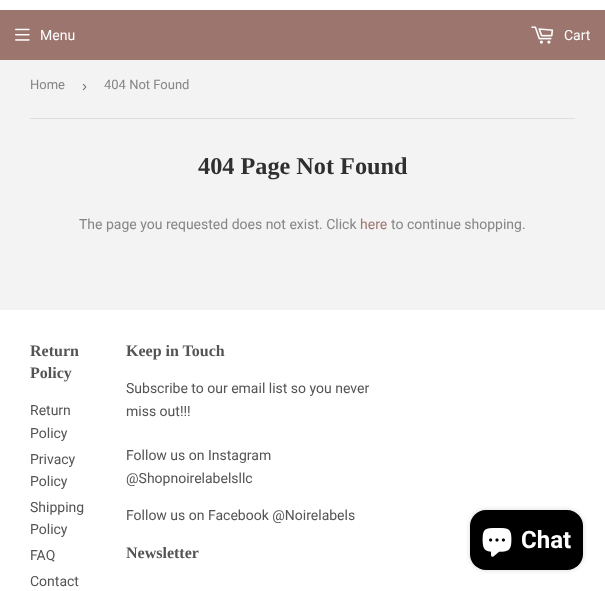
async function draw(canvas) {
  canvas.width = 605
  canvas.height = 591
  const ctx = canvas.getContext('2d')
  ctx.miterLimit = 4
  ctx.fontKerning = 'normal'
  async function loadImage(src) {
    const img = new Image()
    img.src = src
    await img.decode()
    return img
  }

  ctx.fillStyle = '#f3f3f3'
  ctx.fillRect(0, 0, 605, 591)
  ctx.fillStyle = '#fff'
  ctx.fillRect(0, 0, 605, 10)
  ctx.fillStyle = '#9c756f'
  ctx.fillRect(0, 10, 605, 50)
  ctx.drawImage(await loadImage('image0.png'), 15, 28, 15, 13)
  ctx.font = '14px Roboto'
  ctx.fillStyle = '#fff'
  ctx.fillText('Menu', 40, 40)
  ctx.drawImage(await loadImage('image1.png'), 531, 26, 23, 18)
  ctx.fillText('Cart', 564, 40)
  ctx.fillStyle = '#dedede'
  ctx.fillRect(30, 118, 545, 1)
  ctx.font = '13px Roboto'
  ctx.fillStyle = '#858585'
  ctx.fillText('Home', 30, 89)
  ctx.font = '15px Liberation Sans'
  ctx.fillStyle = '#767676'
  ctx.fillText('›', 82, 91)
  ctx.font = '13px Roboto'
  ctx.fillStyle = '#858585'
  ctx.fillText('404 Not Found', 104, 89)
  ctx.font = 'bold 24.25px Liberation Serif'
  ctx.fillStyle = '#2f2f2f'
  ctx.fillText('404 Page Not Found', 198, 174)
  ctx.font = '14px Roboto'
  ctx.fillStyle = '#858585'
  ctx.fillText('The page you requested does not exist. Click', 79, 229)
  ctx.fillStyle = '#9c756f'
  ctx.fillText('here', 360, 229)
  ctx.fillStyle = '#858585'
  ctx.fillText('to continue shopping.', 391, 229)
  ctx.fillStyle = '#fff'
  ctx.fillRect(0, 310, 605, 281)
  ctx.font = 'bold 16px Liberation Serif'
  ctx.fillStyle = '#545454'
  ctx.fillText('Return', 30, 356)
  ctx.fillText('Policy', 30, 378)
  ctx.font = '14px Roboto'
  ctx.fillText('Return', 30, 415)
  ctx.fillText('Policy', 30, 438)
  ctx.fillText('Privacy', 30, 464)
  ctx.fillText('Policy', 30, 486)
  ctx.fillText('Shipping', 30, 512)
  ctx.fillText('Policy', 30, 534)
  ctx.fillText('FAQ', 30, 560)
  ctx.fillText('Contact', 30, 586)
  ctx.font = 'bold 16px Liberation Serif'
  ctx.fillText('Keep in Touch', 126, 356)
  ctx.font = '14px Roboto'
  ctx.fillText('Subscribe to our email list so you never', 126, 393)
  ctx.fillText('miss out!!!', 126, 416)
  ctx.fillText('Follow us on Instagram', 126, 460)
  ctx.fillText('@Shopnoirelabelsllc', 126, 483)
  ctx.fillText('Follow us on Facebook @Noirelabels', 126, 520)
  ctx.font = 'bold 16px Liberation Serif'
  ctx.fillText('Newsletter', 126, 558)
  ctx.fillStyle = '#00000026'
  ctx.filter = 'blur(2.5px)'
  ctx.beginPath()
  ctx.roundRect(470, 510, 113, 60, 16)
  ctx.fill()
  ctx.filter = 'none'
  ctx.fillStyle = '#000'
  ctx.beginPath()
  ctx.roundRect(470, 510, 113, 60, 16)
  ctx.fill()
  ctx.drawImage(await loadImage('image2.png'), 482, 528, 30, 29)
  ctx.font = 'bold 24px Roboto'
  ctx.fillStyle = '#fff'
  ctx.fillText('Chat', 521, 548)
}

draw(document.querySelector('canvas'))
